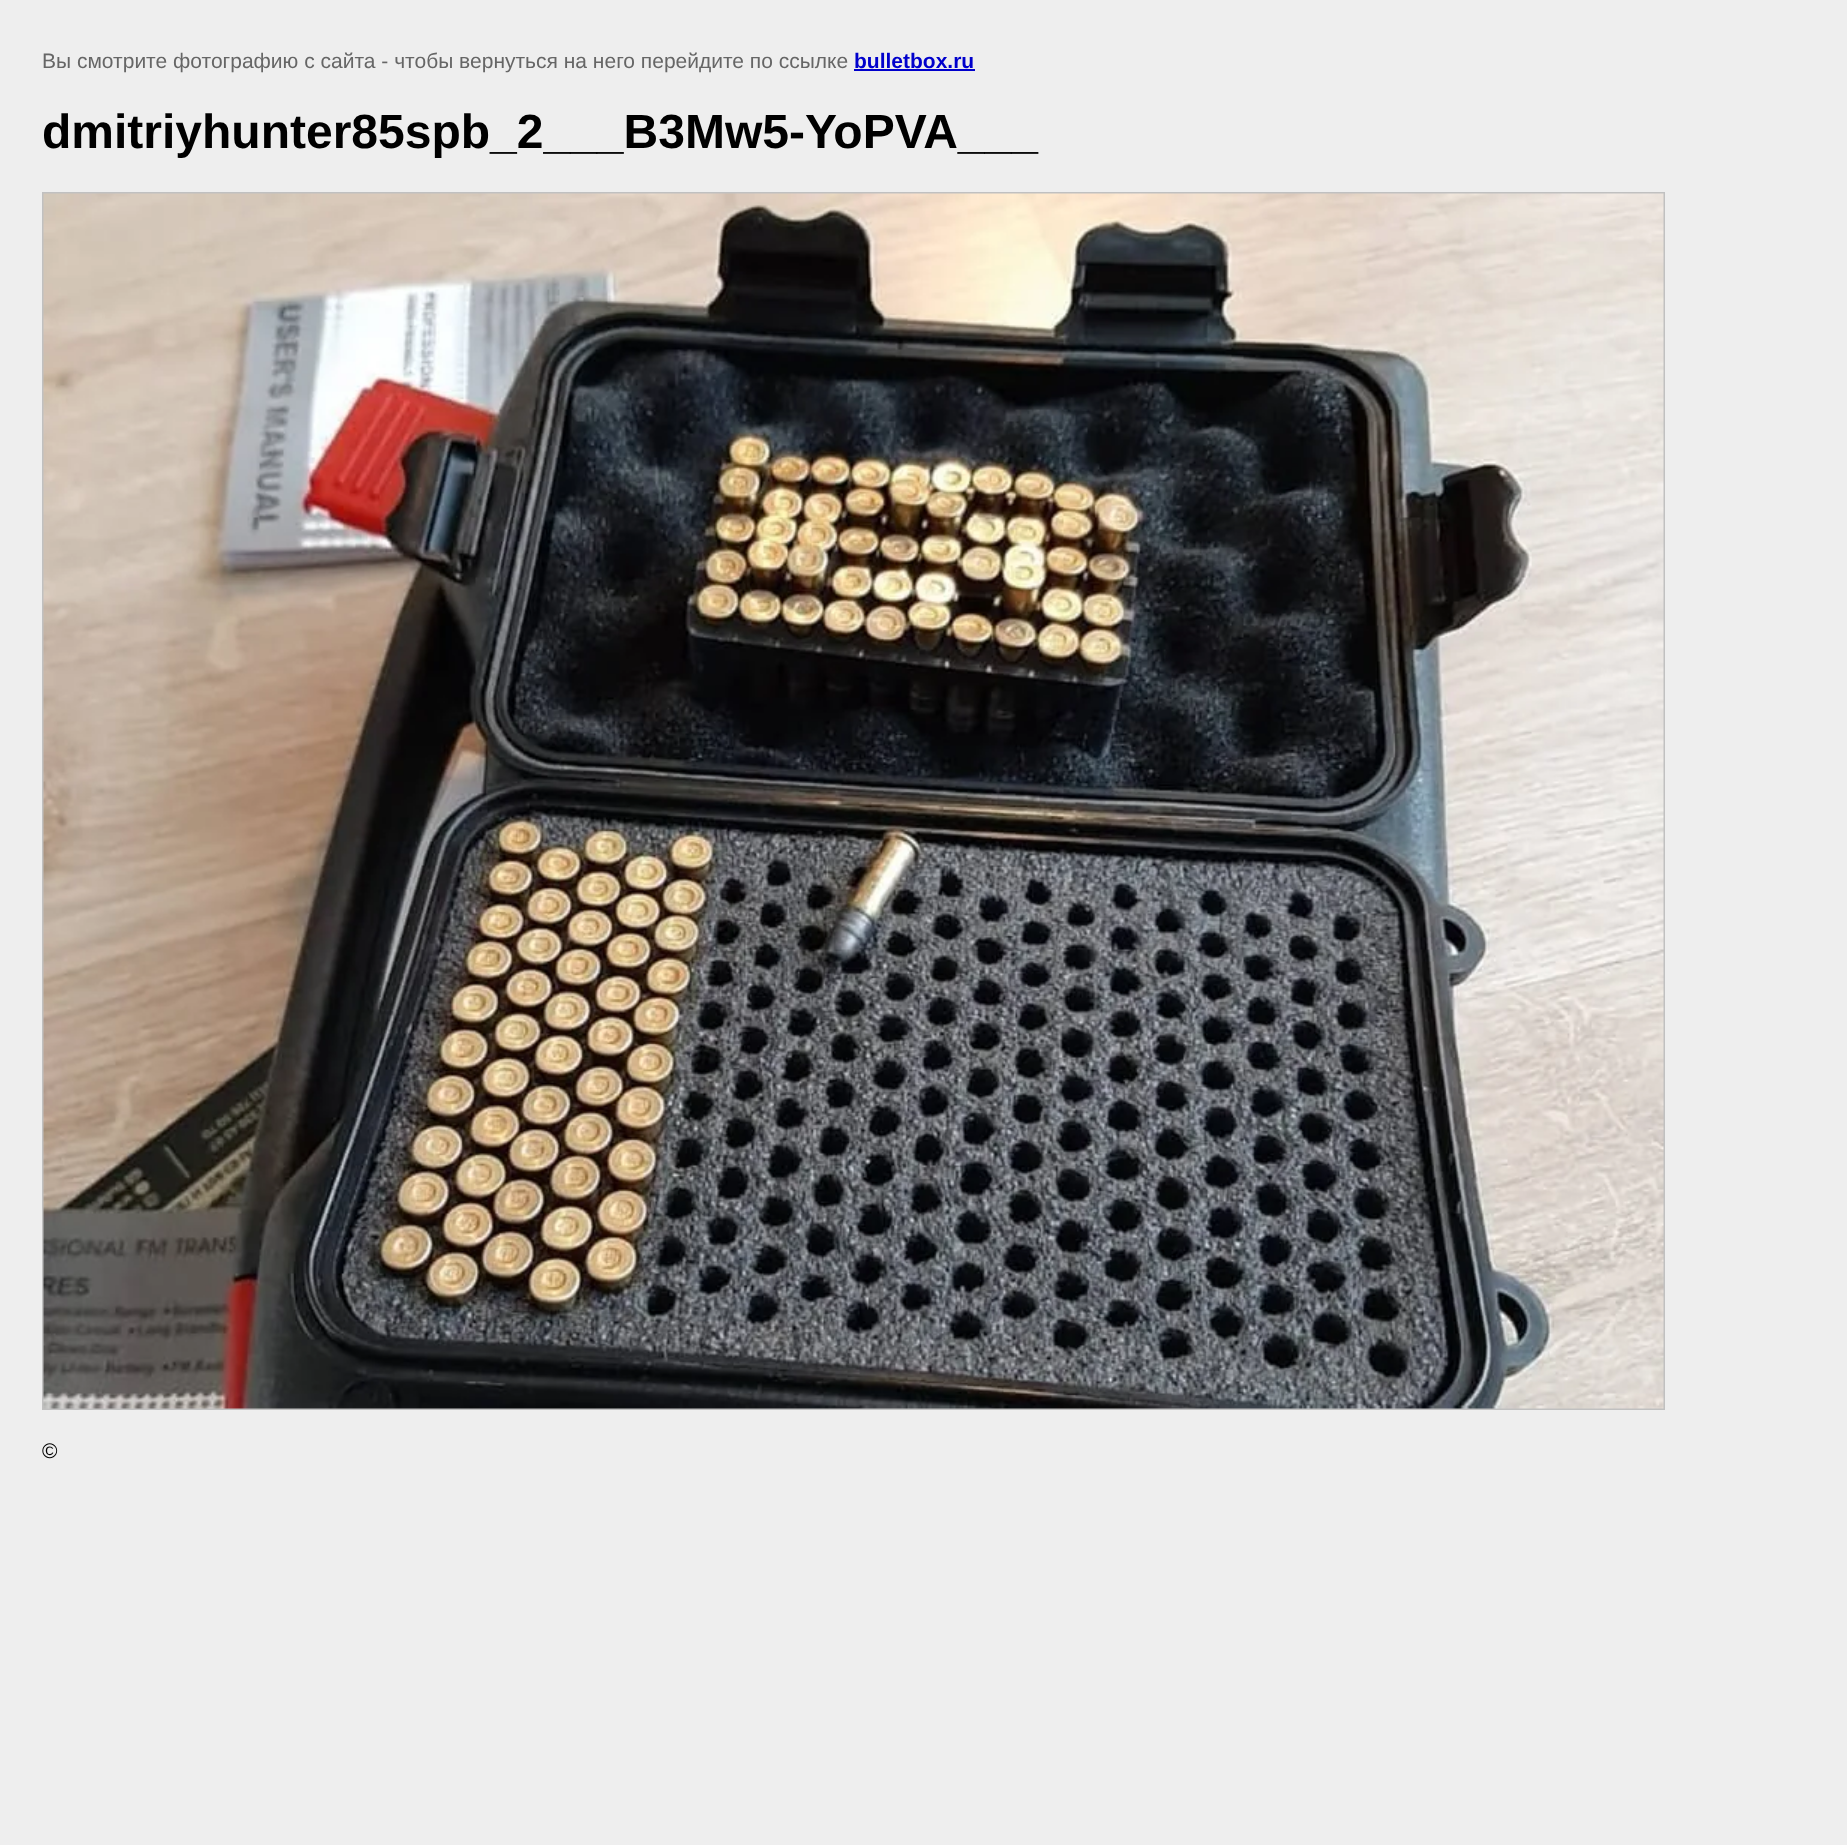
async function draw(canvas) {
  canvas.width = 1847
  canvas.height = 1845
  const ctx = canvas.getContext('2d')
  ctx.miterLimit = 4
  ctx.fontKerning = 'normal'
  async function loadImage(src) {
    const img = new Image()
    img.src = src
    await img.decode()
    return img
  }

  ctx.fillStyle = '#eee'
  ctx.fillRect(0, 0, 1847, 1845)
  ctx.font = '21px Liberation Sans'
  ctx.fillStyle = '#666'
  ctx.fillText('Вы смотрите фотографию с сайта - чтобы вернуться на него перейдите по ссылке', 42, 68)
  ctx.font = 'bold 21px Liberation Sans'
  ctx.fillStyle = '#00c'
  ctx.fillText('bulletbox.ru', 854, 68)
  ctx.fillRect(854, 69, 121, 2)
  ctx.font = 'bold 48px Liberation Sans'
  ctx.fillStyle = '#000'
  ctx.fillText('dmitriyhunter85spb_2___B3Mw5-YoPVA___', 42, 148)
  ctx.strokeStyle = '#c0c0c0'
  ctx.lineWidth = 2
  ctx.strokeRect(43, 193, 1621, 1216)
  ctx.drawImage(await loadImage('image0.png'), 43, 193, 1621, 1216)
  ctx.font = '21px Liberation Sans'
  ctx.fillText('©', 42, 1458)
}

draw(document.querySelector('canvas'))
